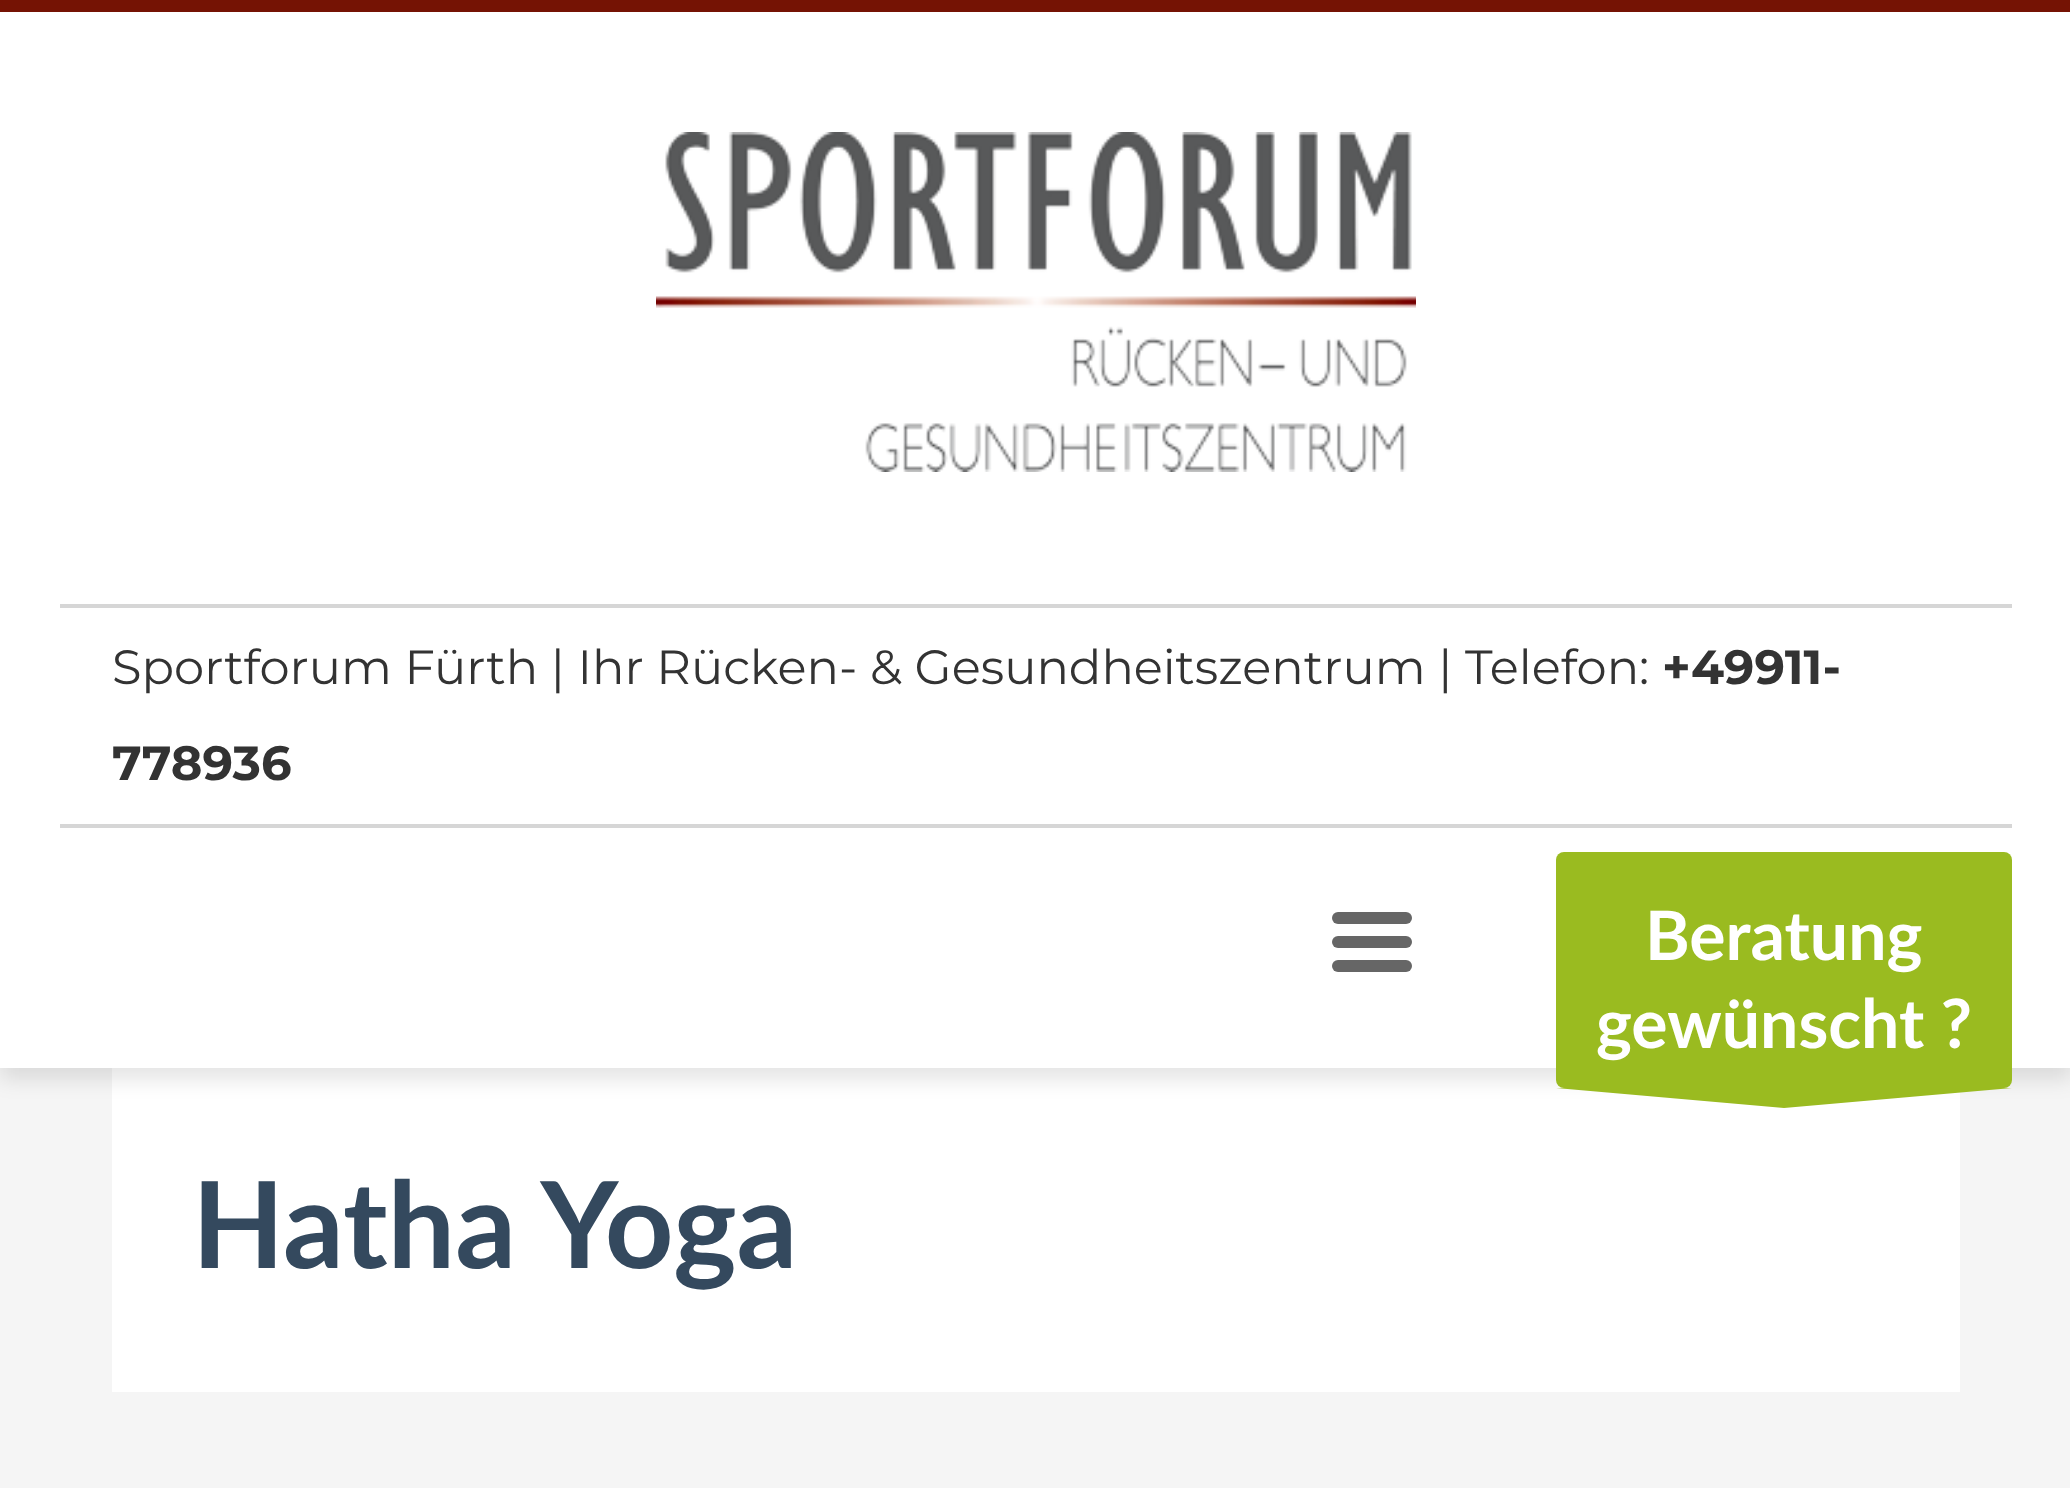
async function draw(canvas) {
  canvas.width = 2070
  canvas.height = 1488
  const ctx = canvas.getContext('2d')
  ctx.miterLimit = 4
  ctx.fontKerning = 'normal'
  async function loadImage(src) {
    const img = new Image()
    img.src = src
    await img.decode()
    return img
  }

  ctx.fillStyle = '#f5f5f5'
  ctx.fillRect(0, 0, 2070, 1488)
  ctx.fillStyle = '#fff'
  ctx.fillRect(112, 1068, 1848, 324)
  ctx.fillStyle = '#0000001a'
  ctx.filter = 'blur(10px)'
  ctx.beginPath()
  ctx.rect(0, 12, 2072, 1068)
  ctx.fill()
  ctx.filter = 'none'
  ctx.fillStyle = '#fff'
  ctx.fillRect(0, 12, 2070, 1056)
  ctx.fillStyle = '#751304'
  ctx.fillRect(0, 0, 2070, 12)
  ctx.drawImage(await loadImage('image0.png'), 656, 132, 760, 340)
  ctx.fillStyle = '#d6d6d6'
  ctx.fillRect(60, 604, 1952, 4)
  ctx.font = '48px Montserrat'
  ctx.fillStyle = '#333'
  ctx.fillText('Sportforum Fürth | Ihr Rücken- & Gesundheitszentrum | Telefon:', 112, 684)
  ctx.font = 'bold 48px Montserrat'
  ctx.fillText('+49911-', 1662, 684)
  ctx.fillText('778936', 112, 780)
  ctx.fillStyle = '#d6d6d6'
  ctx.fillRect(60, 824, 1952, 4)
  ctx.fillStyle = '#666'
  ctx.beginPath()
  ctx.roundRect(1332, 912, 80, 12, 6)
  ctx.fill()
  ctx.beginPath()
  ctx.roundRect(1332, 936, 80, 12, 6)
  ctx.fill()
  ctx.beginPath()
  ctx.roundRect(1332, 960, 80, 12, 6)
  ctx.fill()
  ctx.fillStyle = '#9abb20'
  ctx.beginPath()
  ctx.roundRect(1556, 852, 456, 236, 8)
  ctx.fill()
  ctx.font = 'bold 68px Lato'
  ctx.fillStyle = '#fff'
  ctx.fillText('Beratung', 1645, 960)
  ctx.fillText('gewünscht ?', 1596, 1048)
  ctx.fillStyle = '#9abb20'
  ctx.beginPath()
  ctx.moveTo(2012, 1088)
  ctx.lineTo(1784, 1108)
  ctx.lineTo(1556, 1088)
  ctx.closePath()
  ctx.fill('evenodd')
  ctx.font = 'bold 120px Lato'
  ctx.fillStyle = '#34495e'
  ctx.fillText('Hatha Yoga', 192, 1268)
}

draw(document.querySelector('canvas'))
